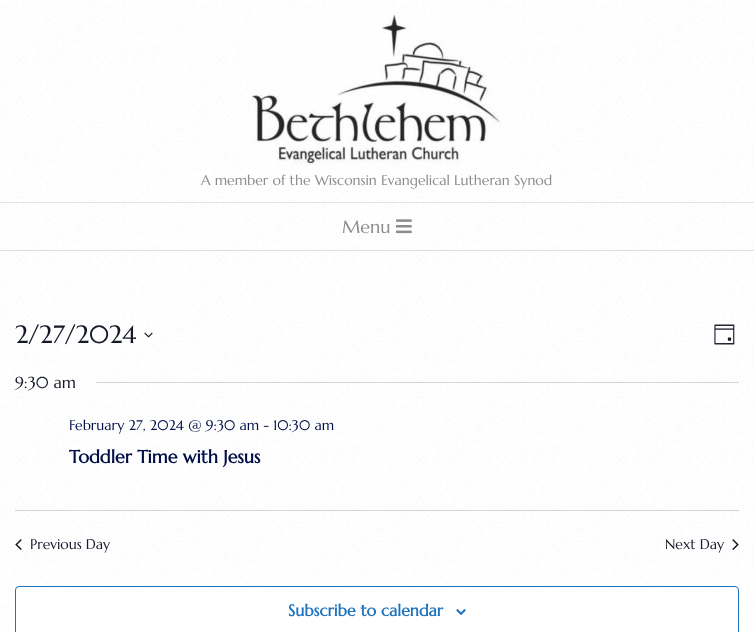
async function draw(canvas) {
  canvas.width = 754
  canvas.height = 632
  const ctx = canvas.getContext('2d')
  ctx.miterLimit = 4
  ctx.fontKerning = 'normal'
  async function loadImage(src) {
    const img = new Image()
    img.src = src
    await img.decode()
    return img
  }

  ctx.fillStyle = '#fff'
  ctx.fillRect(0, 0, 754, 632)
  ctx.drawImage(await loadImage('image0.png'), 0, 0, 754, 632)
  ctx.fillStyle = '#ddd'
  ctx.fillRect(0, 250, 754, 1)
  ctx.drawImage(await loadImage('image1.png'), 252, 15, 250, 158)
  ctx.font = '14px Marcellus'
  ctx.fillStyle = '#8c8c8c'
  ctx.fillText('A member of the Wisconsin Evangelical Lutheran Synod', 201, 185)
  ctx.fillStyle = '#0000001a'
  ctx.fillRect(0, 202, 754, 1)
  ctx.font = '18px Marcellus'
  ctx.fillStyle = '#8c8c8c'
  ctx.fillText('Menu', 342, 233)
  ctx.drawImage(await loadImage('image2.png'), 396, 219, 16, 15)
  ctx.font = '25px Marcellus'
  ctx.fillStyle = '#141827'
  ctx.fillText('2/27/2024', 15, 343)
  ctx.drawImage(await loadImage('image3.png'), 144, 332, 9, 6)
  ctx.drawImage(await loadImage('image4.png'), 678, 325, 13, 15)
  ctx.drawImage(await loadImage('image5.png'), 714, 324, 21, 21)
  ctx.font = '16px Marcellus'
  ctx.fillText('9:30 am', 15, 388)
  ctx.fillStyle = '#d5d5d5'
  ctx.fillRect(96, 382, 643, 1)
  ctx.font = '14px Marcellus'
  ctx.fillStyle = '#000e47'
  ctx.fillText('February 27, 2024 @ 9:30 am - 10:30 am', 69, 430)
  ctx.font = 'bold 18px Marcellus'
  ctx.fillText('Toddler Time with Jesus', 69, 463)
  ctx.fillStyle = '#d5d5d5'
  ctx.fillRect(15, 510, 724, 1)
  ctx.drawImage(await loadImage('image6.png'), 15, 539, 7, 11)
  ctx.font = '14px Marcellus'
  ctx.fillStyle = '#141827'
  ctx.fillText('Previous Day', 30, 549)
  ctx.fillText('Next Day', 665, 549)
  ctx.drawImage(await loadImage('image7.png'), 732, 539, 7, 11)
  ctx.fillStyle = '#fff'
  ctx.beginPath()
  ctx.roundRect(15.5, 586.5, 723, 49, 3.5)
  ctx.fill()
  ctx.strokeStyle = '#1e73be'
  ctx.stroke()
  ctx.font = 'bold 16px Marcellus'
  ctx.fillStyle = '#1e73be'
  ctx.fillText('Subscribe to calendar', 288, 616)
  ctx.drawImage(await loadImage('image8.png'), 456, 609, 10, 6)
}

draw(document.querySelector('canvas'))
